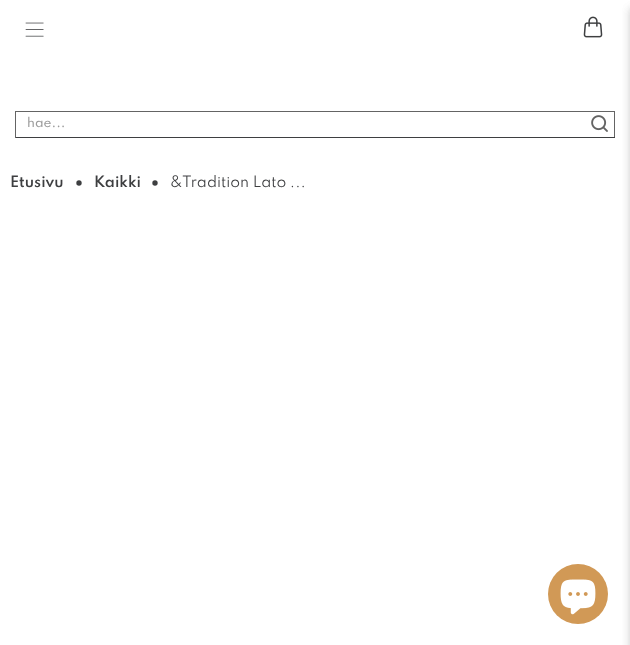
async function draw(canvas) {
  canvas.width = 630
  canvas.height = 645
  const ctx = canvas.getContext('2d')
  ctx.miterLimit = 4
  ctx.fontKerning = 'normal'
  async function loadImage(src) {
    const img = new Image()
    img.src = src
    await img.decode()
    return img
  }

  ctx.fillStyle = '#fff'
  ctx.fillRect(0, 0, 630, 645)
  ctx.drawImage(await loadImage('image0.png'), 25, 22, 19, 15)
  ctx.drawImage(await loadImage('image1.png'), 583, 16, 20, 22)
  ctx.fillStyle = '#0a0a0a1a'
  ctx.filter = 'blur(4px)'
  ctx.beginPath()
  ctx.rect(630, 8, 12, 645)
  ctx.fill()
  ctx.filter = 'none'
  ctx.fillStyle = '#646464'
  ctx.fillRect(15, 111, 600, 1)
  ctx.fillRect(614, 111, 1, 27)
  ctx.fillStyle = '#3e3f41'
  ctx.fillRect(15, 137, 600, 1)
  ctx.fillStyle = '#646464'
  ctx.fillRect(15, 111, 1, 27)
  ctx.font = '500 12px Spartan'
  ctx.fillStyle = '#9b9b9b'
  ctx.fillText('hae...', 27, 127)
  ctx.drawImage(await loadImage('image2.png'), 591, 115, 17, 17)
  ctx.fillStyle = '#0a0a0a1a'
  ctx.filter = 'blur(4px)'
  ctx.beginPath()
  ctx.rect(630, 8, 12, 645)
  ctx.fill()
  ctx.filter = 'none'
  ctx.font = '600 14px Spartan'
  ctx.fillStyle = '#3e3f41'
  ctx.fillText('Etusivu', 10, 187)
  ctx.beginPath()
  ctx.arc(79, 183, 2.7, 0, 2 * Math.PI)
  ctx.fill()
  ctx.fillText('Kaikki', 94, 187)
  ctx.beginPath()
  ctx.arc(155, 183, 2.7, 0, 2 * Math.PI)
  ctx.fill()
  ctx.font = '14px Spartan'
  ctx.fillText('&Tradition Lato ...', 170, 187)
  ctx.fillStyle = '#d19956'
  ctx.beginPath()
  ctx.arc(578, 594, 30, 0, 2 * Math.PI)
  ctx.fill()
  ctx.drawImage(await loadImage('image3.png'), 560, 579, 36, 36)
}

draw(document.querySelector('canvas'))
